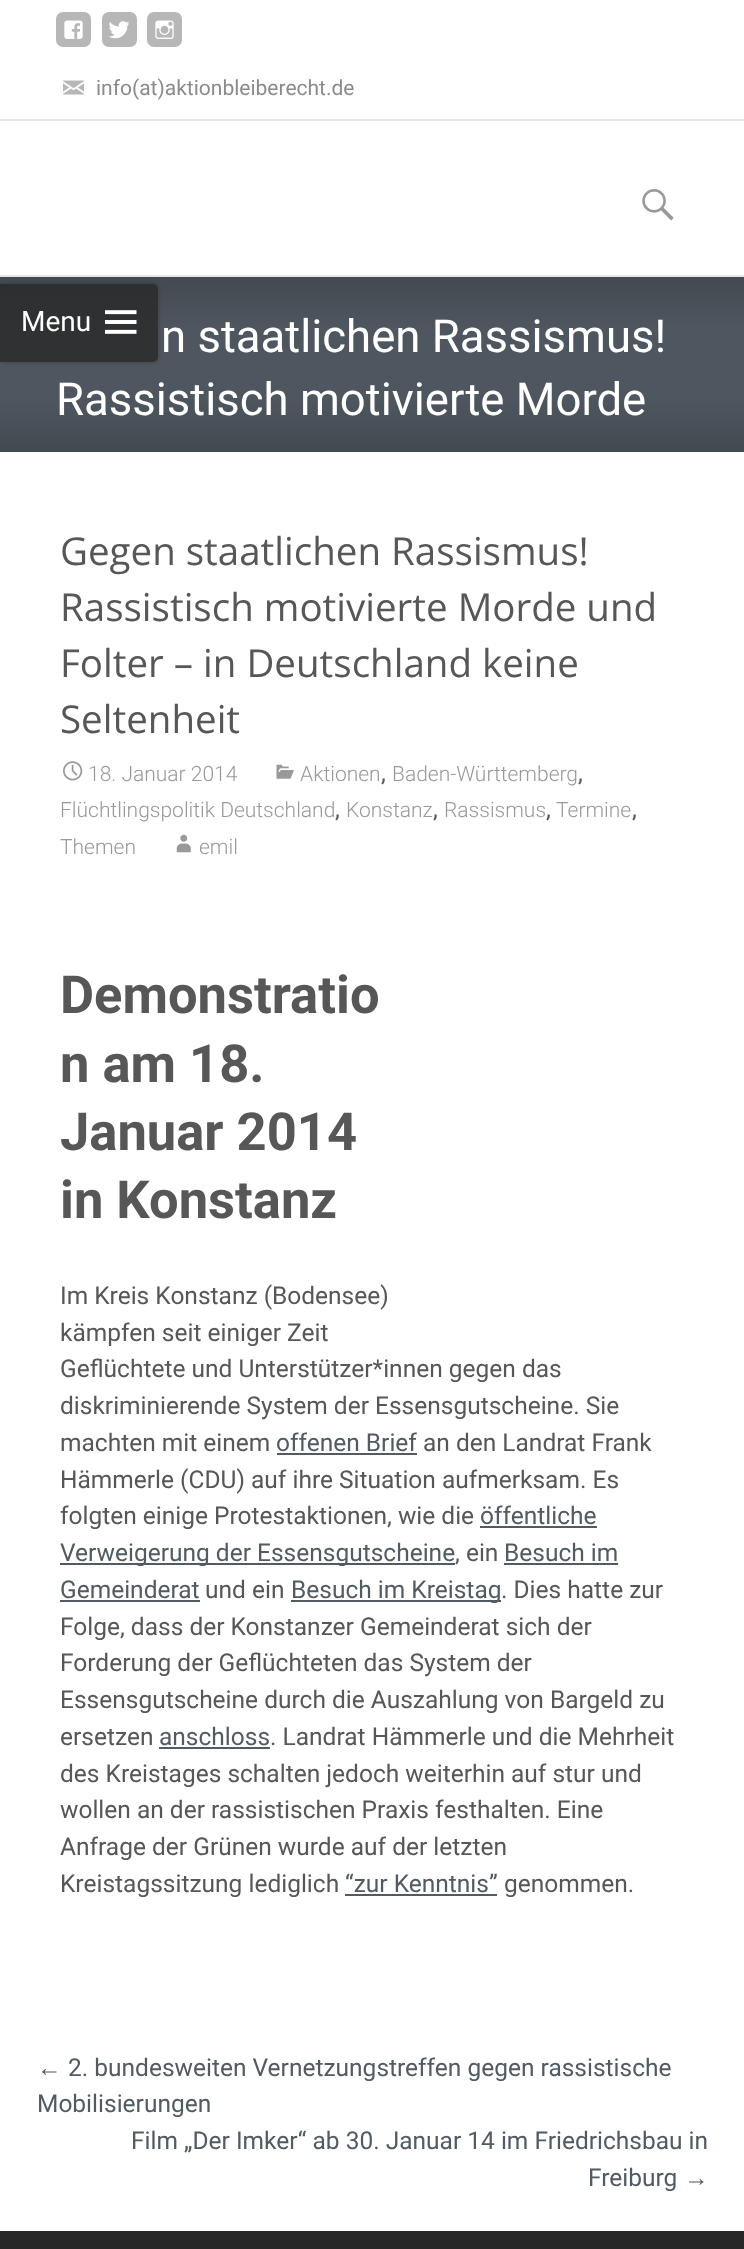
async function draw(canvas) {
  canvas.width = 744
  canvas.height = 2249
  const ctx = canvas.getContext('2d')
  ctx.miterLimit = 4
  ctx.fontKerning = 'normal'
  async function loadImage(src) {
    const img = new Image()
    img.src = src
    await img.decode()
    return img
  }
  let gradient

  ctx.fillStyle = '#fff'
  ctx.fillRect(0, 0, 744, 2249)
  ctx.fillStyle = '#e7e7e7'
  ctx.fillRect(0, 119, 744, 2)
  ctx.fillStyle = '#b7b7b7'
  ctx.beginPath()
  ctx.roundRect(56, 12, 35, 35, 7)
  ctx.fill()
  ctx.drawImage(await loadImage('image0.png'), 64, 20, 19, 19)
  ctx.beginPath()
  ctx.roundRect(102, 12, 35, 35, 7)
  ctx.fill()
  ctx.drawImage(await loadImage('image1.png'), 108, 21, 22, 18)
  ctx.beginPath()
  ctx.roundRect(147, 12, 35, 35, 7)
  ctx.fill()
  ctx.drawImage(await loadImage('image2.png'), 155, 20, 19, 19)
  ctx.drawImage(await loadImage('image3.png'), 63, 80, 21, 15)
  ctx.font = '21px Roboto'
  ctx.fillStyle = '#8b8b8b'
  ctx.fillText('info(at)aktionbleiberecht.de', 96, 95)
  ctx.fillStyle = '#e7e7e7'
  ctx.fillRect(0, 275, 744, 2)
  ctx.drawImage(await loadImage('image4.png'), 642, 189, 32, 32)
  gradient = ctx.createLinearGradient(373, 276, 373, 452)
  gradient.addColorStop(0, '#424950')
  gradient.addColorStop(0.3, '#4e565f')
  gradient.addColorStop(0.69, '#4e565f')
  gradient.addColorStop(1, '#424950')
  ctx.fillStyle = gradient
  ctx.fillRect(0, 277, 744, 175)
  ctx.save()
  ctx.beginPath()
  ctx.moveTo(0, 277)
  ctx.lineTo(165, 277)
  ctx.lineTo(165, 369)
  ctx.lineTo(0, 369)
  ctx.closePath()
  ctx.moveTo(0, 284)
  ctx.lineTo(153, 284)
  ctx.bezierCurveTo(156, 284, 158, 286, 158, 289)
  ctx.lineTo(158, 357)
  ctx.bezierCurveTo(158, 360, 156, 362, 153, 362)
  ctx.lineTo(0, 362)
  ctx.closePath()
  ctx.clip('evenodd')
  ctx.fillStyle = '#323232a3'
  ctx.filter = 'blur(2px)'
  ctx.beginPath()
  ctx.roundRect(0, 284, 158, 78, 5)
  ctx.fill()
  ctx.filter = 'none'
  ctx.restore()
  ctx.fillStyle = '#282828cc'
  ctx.beginPath()
  ctx.roundRect(0, 284, 158, 78, [0, 5, 5, 0])
  ctx.fill()
  ctx.font = '28px Roboto'
  ctx.fillStyle = '#fff'
  ctx.fillText('Menu', 21, 331)
  ctx.drawImage(await loadImage('image5.png'), 105, 310, 32, 24)
  ctx.font = '45.5px Roboto'
  ctx.fillText('n staatlichen Rassismus!', 161, 352)
  ctx.fillText('Rassistisch motivierte Morde', 56, 415)
  ctx.font = '38.5px Open Sans'
  ctx.fillStyle = '#575757'
  ctx.fillText('Gegen staatlichen Rassismus!', 60, 565)
  ctx.fillText('Rassistisch motivierte Morde und', 60, 621)
  ctx.fillText('Folter – in Deutschland keine', 60, 677)
  ctx.fillText('Seltenheit', 60, 733)
  ctx.drawImage(await loadImage('image6.png'), 276, 764, 18, 15)
  ctx.font = '300 21px Roboto'
  ctx.fillStyle = '#999'
  ctx.fillText('Aktionen', 300, 781)
  ctx.font = '24.5px Roboto'
  ctx.fillStyle = '#575757'
  ctx.fillText(',', 381, 781)
  ctx.font = '300 21px Roboto'
  ctx.fillStyle = '#999'
  ctx.fillText('Baden-Württemberg', 392, 781)
  ctx.font = '24.5px Roboto'
  ctx.fillStyle = '#575757'
  ctx.fillText(',', 578, 781)
  ctx.font = '300 21px Roboto'
  ctx.fillStyle = '#999'
  ctx.fillText('Flüchtlingspolitik Deutschland', 60, 817)
  ctx.font = '24.5px Roboto'
  ctx.fillStyle = '#575757'
  ctx.fillText(',', 335, 817)
  ctx.font = '300 21px Roboto'
  ctx.fillStyle = '#999'
  ctx.fillText('Konstanz', 346, 817)
  ctx.font = '24.5px Roboto'
  ctx.fillStyle = '#575757'
  ctx.fillText(',', 433, 817)
  ctx.font = '300 21px Roboto'
  ctx.fillStyle = '#999'
  ctx.fillText('Rassismus', 444, 817)
  ctx.font = '24.5px Roboto'
  ctx.fillStyle = '#575757'
  ctx.fillText(',', 546, 817)
  ctx.font = '300 21px Roboto'
  ctx.fillStyle = '#999'
  ctx.fillText('Termine', 556, 817)
  ctx.font = '24.5px Roboto'
  ctx.fillStyle = '#575757'
  ctx.fillText(',', 632, 817)
  ctx.font = '300 21px Roboto'
  ctx.fillStyle = '#999'
  ctx.fillText('Themen', 60, 854)
  ctx.drawImage(await loadImage('image7.png'), 63, 761, 20, 20)
  ctx.fillText('18. Januar 2014', 88, 781)
  ctx.drawImage(await loadImage('image8.png'), 176, 834, 15, 19)
  ctx.fillText('emil', 199, 854)
  ctx.font = 'bold 52.5px Roboto'
  ctx.fillStyle = '#575757'
  ctx.fillText('Demonstratio', 60, 1013)
  ctx.fillText('n am 18.', 60, 1082)
  ctx.fillText('Januar 2014', 60, 1150)
  ctx.fillText('in Konstanz', 60, 1218)
  ctx.font = '24.5px Roboto'
  ctx.fillText('Im Kreis Konstanz (Bodensee)', 60, 1304)
  ctx.fillText('kämpfen seit einiger Zeit', 60, 1341)
  ctx.fillText('Geflüchtete und Unterstützer*innen gegen das', 60, 1377)
  ctx.fillText('diskriminierende System der Essensgutscheine. Sie', 60, 1414)
  ctx.fillText('machten mit einem', 60, 1451)
  ctx.fillStyle = '#525b64'
  ctx.fillText('offenen Brief', 276, 1451)
  ctx.fillRect(277, 1453, 140, 2)
  ctx.fillStyle = '#575757'
  ctx.fillText('an den Landrat Frank', 423, 1451)
  ctx.fillText('Hämmerle (CDU) auf ihre Situation aufmerksam. Es', 60, 1488)
  ctx.fillText('folgten einige Protestaktionen, wie die', 60, 1524)
  ctx.fillStyle = '#525b64'
  ctx.fillText('öffentliche', 480, 1524)
  ctx.fillRect(480, 1526, 117, 2)
  ctx.fillRect(60, 1563, 395, 2)
  ctx.fillText('Verweigerung der Essensgutscheine', 60, 1561)
  ctx.fillStyle = '#575757'
  ctx.fillText(', ein', 455, 1561)
  ctx.fillStyle = '#525b64'
  ctx.fillText('Besuch im', 504, 1561)
  ctx.fillRect(504, 1563, 114, 2)
  ctx.fillText('Gemeinderat', 60, 1598)
  ctx.fillRect(60, 1600, 140, 2)
  ctx.fillStyle = '#575757'
  ctx.fillText('und ein', 205, 1598)
  ctx.fillStyle = '#525b64'
  ctx.fillRect(291, 1600, 210, 2)
  ctx.fillText('Besuch im Kreistag', 291, 1598)
  ctx.fillStyle = '#575757'
  ctx.fillText('. Dies hatte zur', 501, 1598)
  ctx.fillText('Folge, dass der Konstanzer Gemeinderat sich der', 60, 1635)
  ctx.fillText('Forderung der Geflüchteten das System der', 60, 1671)
  ctx.fillText('Essensgutscheine durch die Auszahlung von Bargeld zu', 60, 1708)
  ctx.fillText('ersetzen', 60, 1745)
  ctx.fillStyle = '#525b64'
  ctx.fillText('anschloss', 159, 1745)
  ctx.fillRect(159, 1747, 111, 2)
  ctx.fillStyle = '#575757'
  ctx.fillText('. Landrat Hämmerle und die Mehrheit', 270, 1745)
  ctx.fillText('des Kreistages schalten jedoch weiterhin auf stur und', 60, 1782)
  ctx.fillText('wollen an der rassistischen Praxis festhalten. Eine', 60, 1818)
  ctx.fillText('Anfrage der Grünen wurde auf der letzten', 60, 1855)
  ctx.fillText('Kreistagssitzung lediglich', 60, 1892)
  ctx.fillStyle = '#525b64'
  ctx.fillText('“zur Kenntnis”', 345, 1892)
  ctx.fillRect(345, 1894, 152, 2)
  ctx.fillStyle = '#575757'
  ctx.fillText('genommen.', 504, 1892)
  ctx.font = '24.5px Liberation Sans'
  ctx.fillStyle = '#525b64'
  ctx.fillText('←', 37, 2076)
  ctx.font = '24.5px Roboto'
  ctx.fillText('2. bundesweiten Vernetzungstreffen gegen rassistische', 68, 2076)
  ctx.fillText('Mobilisierungen', 37, 2112)
  ctx.fillText('Film „Der Imker“ ab 30. Januar 14 im Friedrichsbau in', 131, 2149)
  ctx.fillText('Freiburg', 588, 2186)
  ctx.font = '24.5px Liberation Sans'
  ctx.fillText('→', 684, 2186)
  ctx.fillStyle = '#272727'
  ctx.fillRect(0, 2231, 744, 18)
}

draw(document.querySelector('canvas'))
